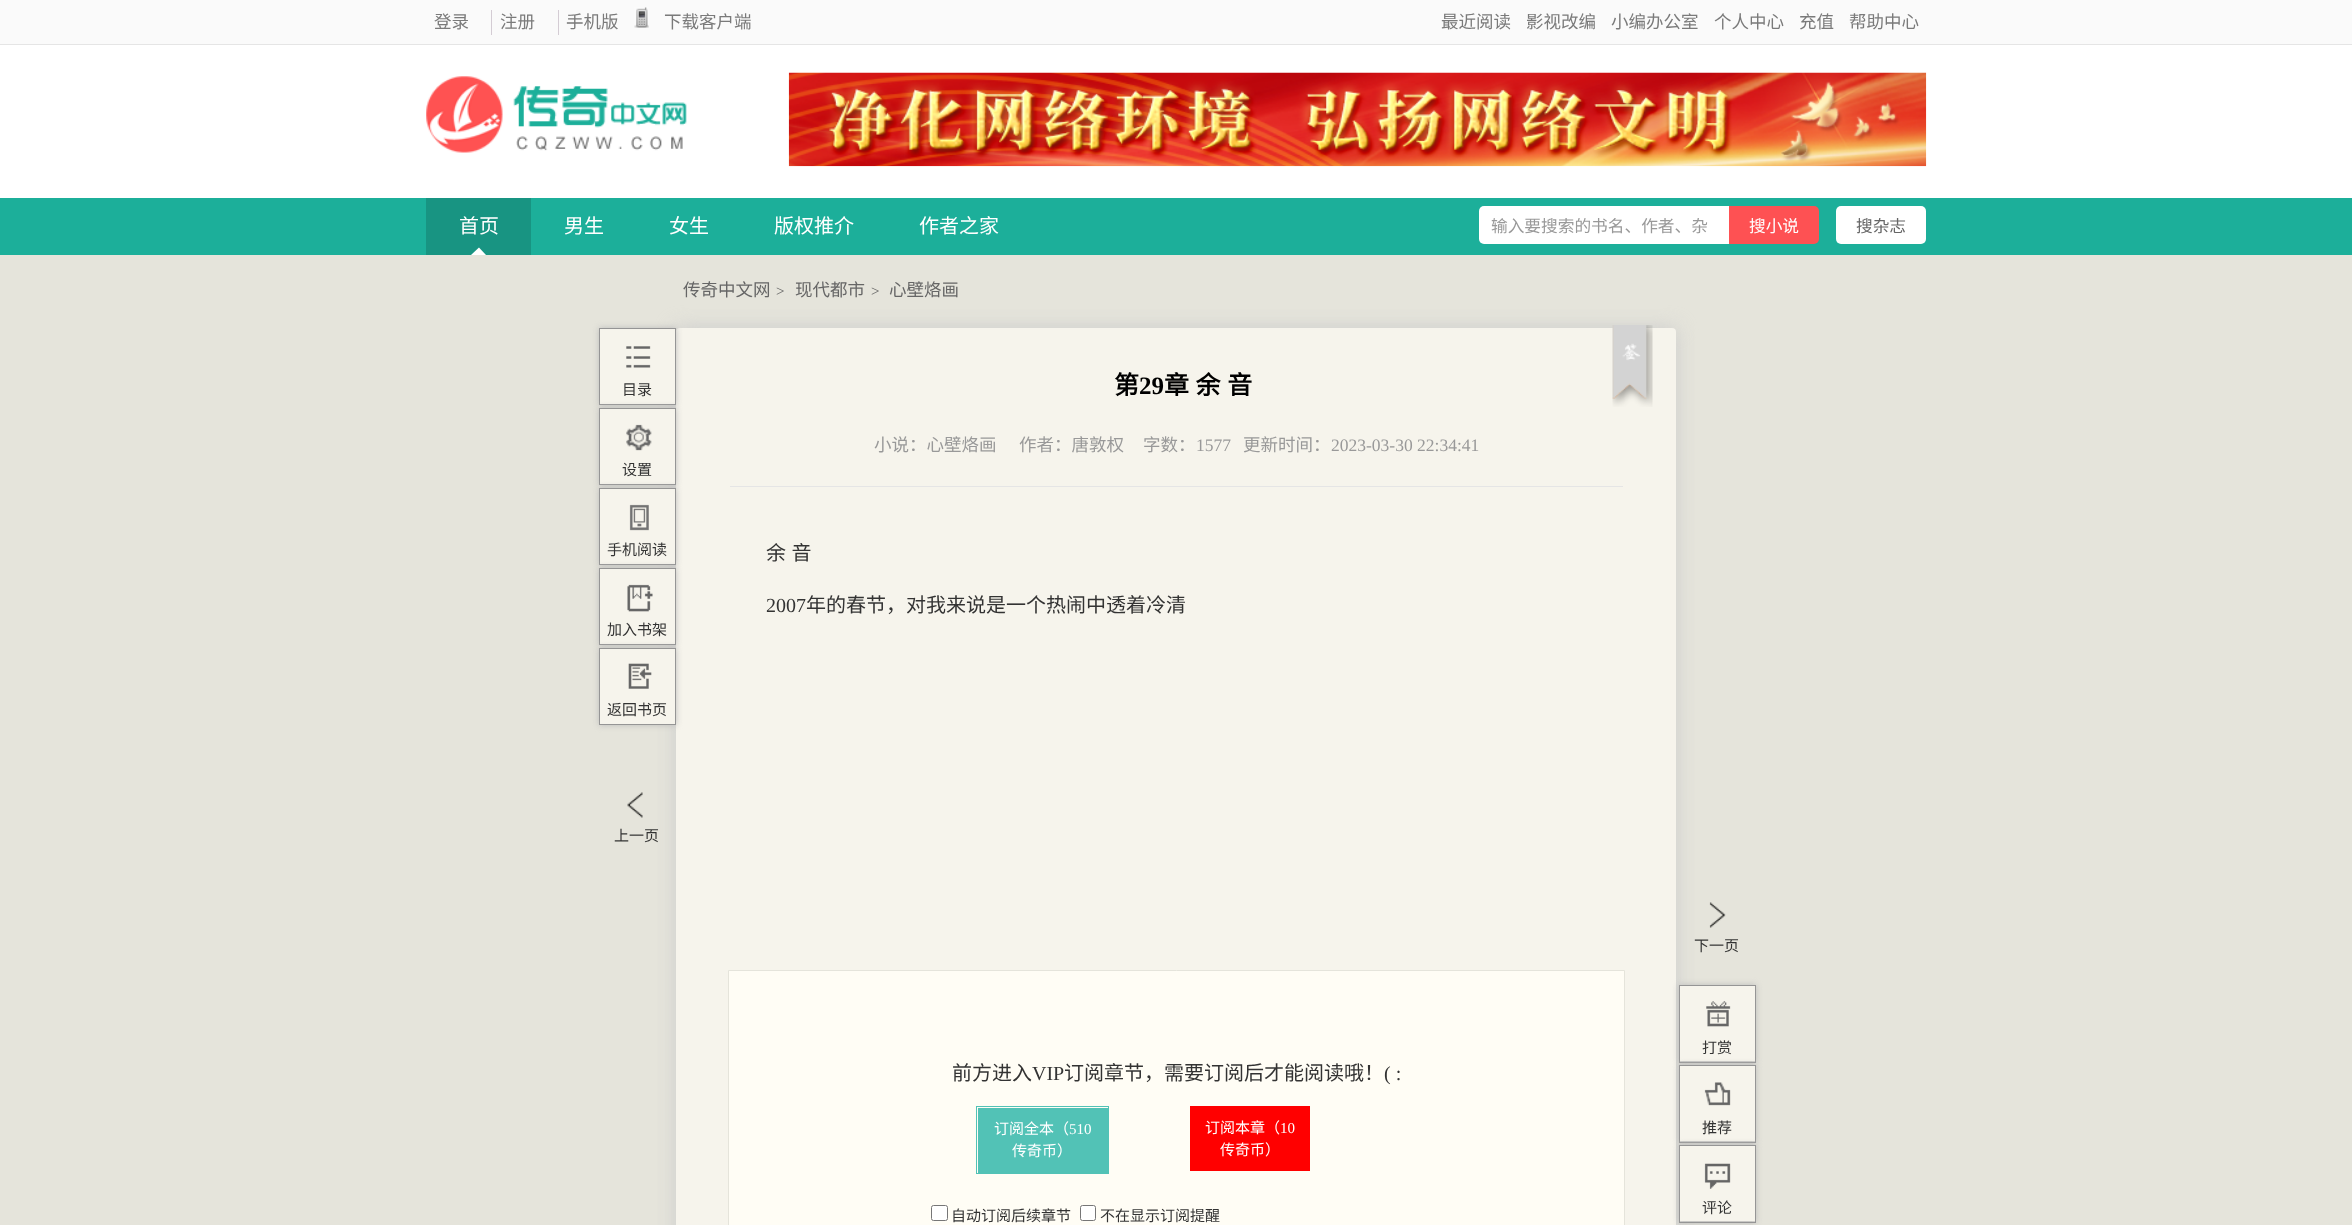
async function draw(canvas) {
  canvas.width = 2352
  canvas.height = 1225
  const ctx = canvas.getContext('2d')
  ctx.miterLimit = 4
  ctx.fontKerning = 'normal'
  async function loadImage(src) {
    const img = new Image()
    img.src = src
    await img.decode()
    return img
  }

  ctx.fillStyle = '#e5e4db'
  ctx.fillRect(0, 0, 2352, 1225)
  ctx.fillStyle = '#fafafa'
  ctx.fillRect(0, 0, 2352, 44)
  ctx.fillStyle = '#e5e5e5'
  ctx.fillRect(0, 44, 2352, 1)
  ctx.font = '17.5px Noto Sans CJK SC'
  ctx.fillStyle = '#7a7a7a'
  ctx.fillText('登录', 434, 28)
  ctx.fillStyle = '#d4ccd4'
  ctx.fillRect(491, 10, 1, 25)
  ctx.fillStyle = '#7a7a7a'
  ctx.fillText('注册', 500, 28)
  ctx.fillStyle = '#d4ccd4'
  ctx.fillRect(558, 10, 1, 25)
  ctx.fillStyle = '#7a7a7a'
  ctx.fillText('手机版', 566, 28)
  ctx.drawImage(await loadImage('image0.png'), 634, 7, 15, 21)
  ctx.fillText('下载客户端', 664, 28)
  ctx.fillText('最近阅读', 1441, 28)
  ctx.fillText('影视改编', 1526, 28)
  ctx.fillText('小编办公室', 1611, 28)
  ctx.fillText('个人中心', 1714, 28)
  ctx.fillText('充值', 1799, 28)
  ctx.fillText('帮助中心', 1849, 28)
  ctx.fillStyle = '#fff'
  ctx.fillRect(0, 45, 2352, 153)
  ctx.drawImage(await loadImage('image1.png'), 426, 76, 261, 77)
  ctx.drawImage(await loadImage('image2.png'), 788, 72, 1139, 95)
  ctx.fillStyle = '#1caf9a'
  ctx.fillRect(0, 198, 2352, 57)
  ctx.fillStyle = '#189482'
  ctx.fillRect(426, 198, 105, 57)
  ctx.font = '20px Noto Sans CJK SC'
  ctx.fillStyle = '#fff'
  ctx.fillText('首页', 459, 233)
  ctx.beginPath()
  ctx.moveTo(486, 255)
  ctx.lineTo(471, 255)
  ctx.lineTo(479, 247.5)
  ctx.closePath()
  ctx.fill()
  ctx.fillText('男生', 564, 233)
  ctx.fillText('女生', 669, 233)
  ctx.fillText('版权推介', 774, 233)
  ctx.fillText('作者之家', 919, 233)
  ctx.beginPath()
  ctx.roundRect(1479, 206, 250, 38, [5, 0, 0, 5])
  ctx.fill()
  ctx.font = '16.7px Noto Sans CJK SC'
  ctx.fillStyle = '#999'
  ctx.fillText('输入要搜索的书名、作者、杂', 1491, 232)
  ctx.fillStyle = '#fe5153'
  ctx.beginPath()
  ctx.roundRect(1729, 206, 90, 38, [0, 5, 5, 0])
  ctx.fill()
  ctx.fillStyle = '#fff'
  ctx.fillText('搜小说', 1749, 232)
  ctx.beginPath()
  ctx.roundRect(1836, 206, 90, 38, 5)
  ctx.fill()
  ctx.fillStyle = '#666'
  ctx.fillText('搜杂志', 1856, 232)
  ctx.fillStyle = '#ccc'
  ctx.filter = 'blur(9.5px)'
  ctx.beginPath()
  ctx.roundRect(676, 328, 1000, 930, 4)
  ctx.fill()
  ctx.filter = 'none'
  ctx.fillStyle = '#f6f4ec'
  ctx.beginPath()
  ctx.roundRect(676, 328, 1000, 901, 4)
  ctx.fill()
  ctx.fillStyle = '#bbb'
  ctx.filter = 'blur(3px)'
  ctx.beginPath()
  ctx.rect(599, 328, 77, 77)
  ctx.fill()
  ctx.filter = 'none'
  ctx.strokeStyle = '#959595'
  ctx.strokeRect(599.5, 328.5, 76, 76)
  ctx.fillStyle = '#f6f4ec'
  ctx.fillRect(600, 329, 75, 75)
  ctx.drawImage(await loadImage('image3.png'), 626, 346, 25, 22)
  ctx.font = '15px Noto Sans CJK SC'
  ctx.fillStyle = '#333'
  ctx.fillText('目录', 622, 395)
  ctx.fillStyle = '#bbb'
  ctx.filter = 'blur(3px)'
  ctx.beginPath()
  ctx.rect(599, 408, 77, 77)
  ctx.fill()
  ctx.filter = 'none'
  ctx.strokeRect(599.5, 408.5, 76, 76)
  ctx.fillStyle = '#f6f4ec'
  ctx.fillRect(600, 409, 75, 75)
  ctx.drawImage(await loadImage('image4.png'), 626, 424, 26, 27)
  ctx.fillStyle = '#333'
  ctx.fillText('设置', 622, 475)
  ctx.fillStyle = '#bbb'
  ctx.filter = 'blur(3px)'
  ctx.beginPath()
  ctx.rect(599, 488, 77, 77)
  ctx.fill()
  ctx.filter = 'none'
  ctx.strokeRect(599.5, 488.5, 76, 76)
  ctx.fillStyle = '#f6f4ec'
  ctx.fillRect(600, 489, 75, 75)
  ctx.drawImage(await loadImage('image5.png'), 629, 504, 20, 27)
  ctx.fillStyle = '#333'
  ctx.fillText('手机阅读', 607, 555)
  ctx.fillStyle = '#bbb'
  ctx.filter = 'blur(3px)'
  ctx.beginPath()
  ctx.rect(599, 568, 77, 77)
  ctx.fill()
  ctx.filter = 'none'
  ctx.strokeRect(599.5, 568.5, 76, 76)
  ctx.fillStyle = '#f6f4ec'
  ctx.fillRect(600, 569, 75, 75)
  ctx.drawImage(await loadImage('image6.png'), 627, 584, 26, 28)
  ctx.fillStyle = '#333'
  ctx.fillText('加入书架', 607, 635)
  ctx.fillStyle = '#bbb'
  ctx.filter = 'blur(3px)'
  ctx.beginPath()
  ctx.rect(599, 648, 77, 77)
  ctx.fill()
  ctx.filter = 'none'
  ctx.strokeRect(599.5, 648.5, 76, 76)
  ctx.fillStyle = '#f6f4ec'
  ctx.fillRect(600, 649, 75, 75)
  ctx.drawImage(await loadImage('image7.png'), 628, 663, 24, 26)
  ctx.fillStyle = '#333'
  ctx.fillText('返回书页', 607, 715)
  ctx.drawImage(await loadImage('image8.png'), 627, 792, 16, 26)
  ctx.fillText('上一页', 614, 841)
  ctx.font = '17.5px Noto Sans CJK SC'
  ctx.fillStyle = '#666'
  ctx.fillText('传奇中文网', 683, 296)
  ctx.font = '15px Liberation Serif'
  ctx.fillText('>', 776, 296)
  ctx.font = '17.5px Noto Sans CJK SC'
  ctx.fillText('现代都市', 795, 296)
  ctx.font = '15px Liberation Serif'
  ctx.fillText('>', 871, 296)
  ctx.font = '17.5px Noto Sans CJK SC'
  ctx.fillText('心壁烙画', 889, 296)
  ctx.fillStyle = '#e5e5e5'
  ctx.fillRect(730, 486, 893, 1)
  ctx.font = 'bold 25px Noto Sans CJK SC'
  ctx.fillStyle = '#000'
  ctx.fillText('第', 1114, 394)
  ctx.font = 'bold 25px Liberation Serif'
  ctx.fillText('29', 1139, 394)
  ctx.wordSpacing = '1px'
  ctx.font = 'bold 25px Noto Sans CJK SC'
  ctx.fillText('章 余 音', 1164, 394)
  ctx.drawImage(await loadImage('image9.png'), 1612, 325, 41, 82)
  ctx.wordSpacing = '0px'
  ctx.font = '17.5px Noto Sans CJK SC'
  ctx.fillStyle = '#999'
  ctx.fillText('小说：心壁烙画', 874, 451)
  ctx.fillText('作者：唐敦权', 1019, 451)
  ctx.fillText('字数：', 1143, 451)
  ctx.font = '17.5px Liberation Serif'
  ctx.fillText('1577', 1196, 451)
  ctx.font = '17.5px Noto Sans CJK SC'
  ctx.fillText('更新时间：', 1243, 451)
  ctx.font = '17.5px Liberation Serif'
  ctx.fillText('2023-03-30 22:34:41', 1331, 451)
  ctx.wordSpacing = '1px'
  ctx.font = '20px Noto Sans CJK SC'
  ctx.fillStyle = '#333'
  ctx.fillText('余 音', 766, 560)
  ctx.wordSpacing = '0px'
  ctx.font = '20px Liberation Serif'
  ctx.fillText('2007', 766, 612)
  ctx.font = '20px Noto Sans CJK SC'
  ctx.fillText('年的春节，对我来说是一个热闹中透着冷清', 806, 612)
  ctx.fillStyle = '#fffdf5'
  ctx.beginPath()
  ctx.rect(728.5, 970.5, 896, 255)
  ctx.fill()
  ctx.strokeStyle = '#e5e4db'
  ctx.stroke()
  ctx.fillStyle = '#333'
  ctx.fillText('前方进入', 952, 1080)
  ctx.font = '20px Liberation Serif'
  ctx.fillText('VIP', 1032, 1080)
  ctx.font = '20px Noto Sans CJK SC'
  ctx.fillText('订阅章节，需要订阅后才能阅读哦！', 1064, 1080)
  ctx.font = '20px Liberation Serif'
  ctx.fillText('( :', 1384, 1080)
  ctx.strokeStyle = '#52c2b6'
  ctx.strokeRect(976.5, 1106.5, 132, 67)
  ctx.fillStyle = '#52c2b6'
  ctx.fillRect(978, 1108, 130, 65)
  ctx.font = '15px Noto Sans CJK SC'
  ctx.fillStyle = '#fff'
  ctx.fillText('订阅全本（', 994, 1134)
  ctx.font = '15px Liberation Serif'
  ctx.fillText('510', 1069, 1134)
  ctx.font = '15px Noto Sans CJK SC'
  ctx.fillText('传奇币）', 1012, 1156)
  ctx.fillStyle = '#f00'
  ctx.fillRect(1190, 1106, 120, 65)
  ctx.fillStyle = '#fff'
  ctx.fillText('订阅本章（', 1205, 1133)
  ctx.font = '15px Liberation Serif'
  ctx.fillText('10', 1280, 1133)
  ctx.font = '15px Noto Sans CJK SC'
  ctx.fillText('传奇币）', 1220, 1155)
  ctx.beginPath()
  ctx.roundRect(931.5, 1205.5, 16, 15, 2)
  ctx.fill()
  ctx.strokeStyle = '#767676'
  ctx.stroke()
  ctx.fillStyle = '#333'
  ctx.fillText('自动订阅后续章节', 951, 1221)
  ctx.fillStyle = '#fff'
  ctx.beginPath()
  ctx.roundRect(1080.5, 1205.5, 15, 15, 2)
  ctx.fill()
  ctx.stroke()
  ctx.fillStyle = '#333'
  ctx.fillText('不在显示订阅提醒', 1100, 1221)
  ctx.drawImage(await loadImage('image10.png'), 1709, 902, 17, 26)
  ctx.fillText('下一页', 1694, 951)
  ctx.fillStyle = '#bbb'
  ctx.filter = 'blur(3px)'
  ctx.beginPath()
  ctx.rect(1679, 985, 77, 78)
  ctx.fill()
  ctx.filter = 'none'
  ctx.strokeStyle = '#959595'
  ctx.strokeRect(1679.5, 985.5, 76, 77)
  ctx.fillStyle = '#f6f4ec'
  ctx.fillRect(1680, 986, 75, 75)
  ctx.drawImage(await loadImage('image11.png'), 1706, 1001, 25, 26)
  ctx.fillStyle = '#333'
  ctx.fillText('打赏', 1702, 1053)
  ctx.fillStyle = '#bbb'
  ctx.filter = 'blur(3px)'
  ctx.beginPath()
  ctx.rect(1679, 1065, 77, 78)
  ctx.fill()
  ctx.filter = 'none'
  ctx.strokeRect(1679.5, 1065.5, 76, 77)
  ctx.fillStyle = '#f6f4ec'
  ctx.fillRect(1680, 1066, 75, 75)
  ctx.drawImage(await loadImage('image12.png'), 1704, 1082, 27, 24)
  ctx.fillStyle = '#333'
  ctx.fillText('推荐', 1702, 1133)
  ctx.fillStyle = '#bbb'
  ctx.filter = 'blur(3px)'
  ctx.beginPath()
  ctx.rect(1679, 1145, 77, 78)
  ctx.fill()
  ctx.filter = 'none'
  ctx.strokeRect(1679.5, 1145.5, 76, 77)
  ctx.fillStyle = '#f6f4ec'
  ctx.fillRect(1680, 1146, 75, 75)
  ctx.drawImage(await loadImage('image13.png'), 1704, 1163, 27, 26)
  ctx.fillStyle = '#333'
  ctx.fillText('评论', 1702, 1213)
}

draw(document.querySelector('canvas'))
